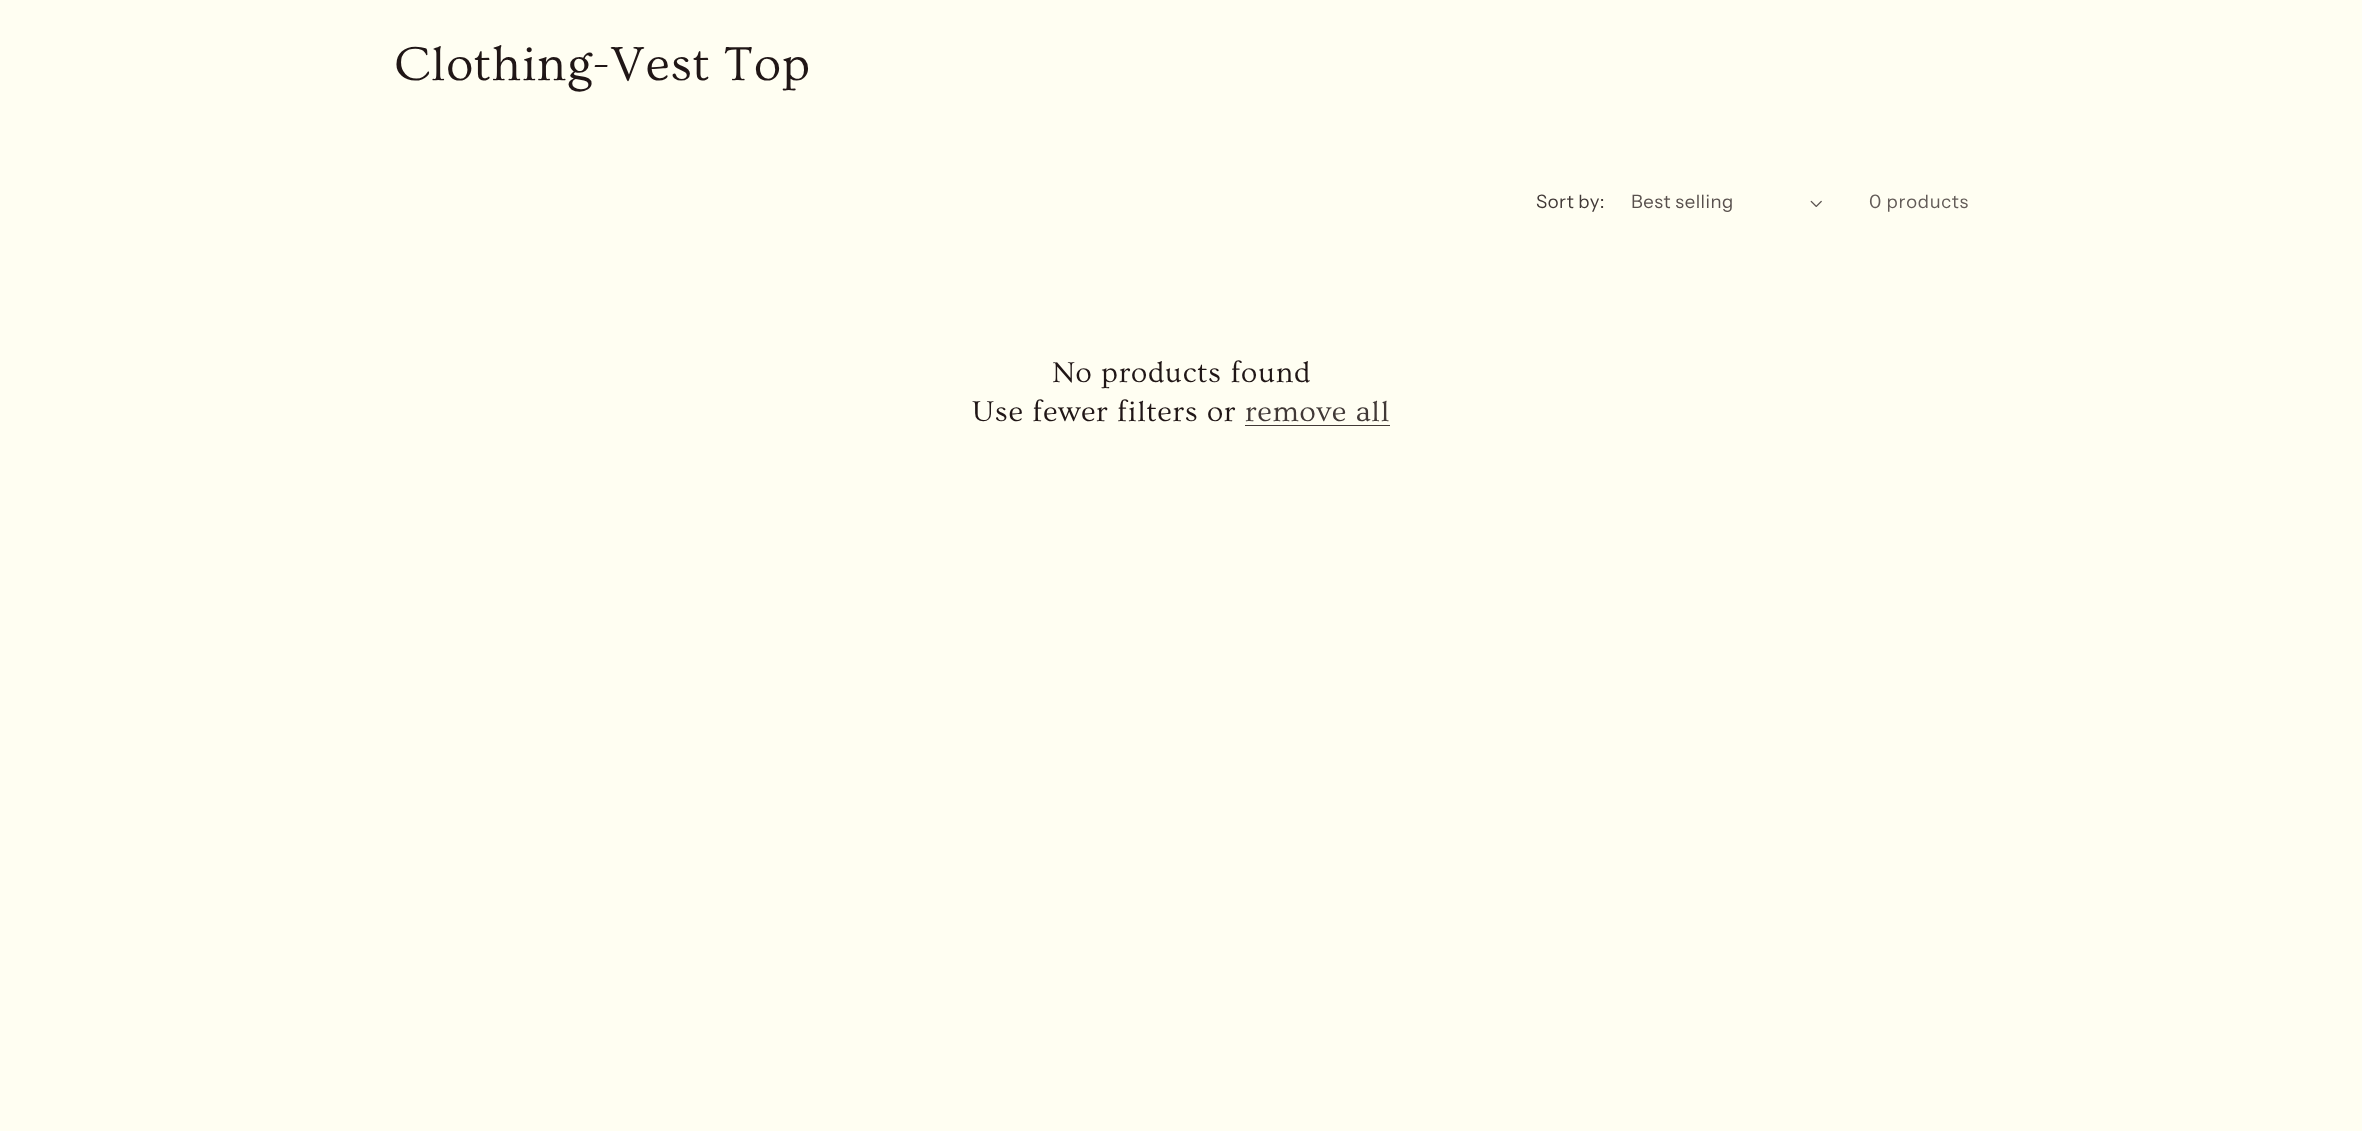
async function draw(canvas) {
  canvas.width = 2362
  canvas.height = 1131
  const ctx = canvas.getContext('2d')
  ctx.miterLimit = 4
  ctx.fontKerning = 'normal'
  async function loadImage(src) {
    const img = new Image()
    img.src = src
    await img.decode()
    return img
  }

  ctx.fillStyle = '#fffef2'
  ctx.fillRect(0, 0, 2362, 1131)
  ctx.letterSpacing = '0.75px'
  ctx.font = '50px Ovo'
  ctx.fillStyle = '#201616'
  ctx.fillText('Clothing-Vest Top', 394, 80)
  ctx.letterSpacing = '0.5px'
  ctx.font = '18.5px Instrument Sans'
  ctx.fillStyle = '#413937'
  ctx.fillText('Sort by:', 1536, 208)
  ctx.fillStyle = '#58504d'
  ctx.fillText('Best selling', 1631, 208)
  ctx.drawImage(await loadImage('image0.png'), 1810, 200, 12, 7)
  ctx.letterSpacing = '0.75px'
  ctx.fillStyle = '#635c58'
  ctx.fillText('0 products', 1869, 208)
  ctx.font = '30px Ovo'
  ctx.fillStyle = '#201616'
  ctx.fillText('No products found', 1052, 382)
  ctx.fillText('Use fewer filters or', 972, 421)
  ctx.fillStyle = '#413937'
  ctx.fillText('remove all', 1245, 421)
  ctx.fillRect(1245, 425, 145, 1)
}

draw(document.querySelector('canvas'))
